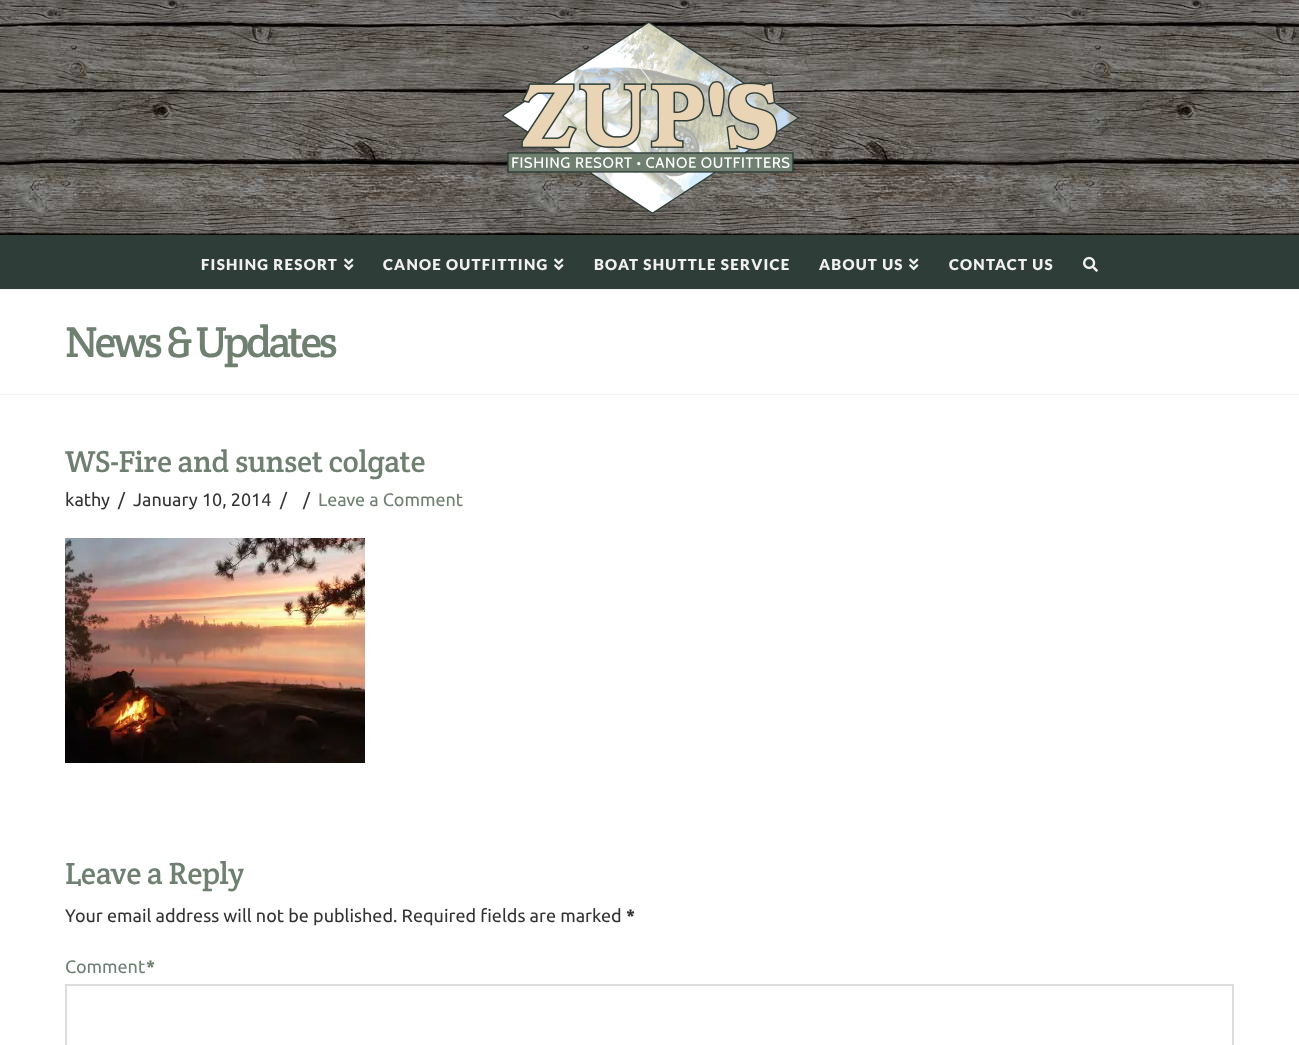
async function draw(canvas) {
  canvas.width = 1299
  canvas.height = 1045
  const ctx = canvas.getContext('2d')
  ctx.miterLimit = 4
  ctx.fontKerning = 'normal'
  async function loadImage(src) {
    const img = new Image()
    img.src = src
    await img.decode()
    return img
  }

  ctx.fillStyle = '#fff'
  ctx.fillRect(0, 0, 1299, 1045)
  ctx.drawImage(await loadImage('image0.png'), 0, 0, 1299, 235)
  ctx.drawImage(await loadImage('image1.png'), 501, 21, 299, 193)
  ctx.fillStyle = '#2e3d38'
  ctx.fillRect(0, 235, 1299, 54)
  ctx.letterSpacing = '1.25px'
  ctx.font = '900 15px Lato'
  ctx.fillStyle = '#f0f0f0'
  ctx.fillText('FISHING RESORT', 201, 270)
  ctx.drawImage(await loadImage('image2.png'), 344, 258, 10, 13)
  ctx.fillText('CANOE OUTFITTING', 383, 270)
  ctx.drawImage(await loadImage('image2.png'), 554, 258, 10, 13)
  ctx.fillText('BOAT SHUTTLE SERVICE', 594, 270)
  ctx.fillText('ABOUT US', 819, 270)
  ctx.drawImage(await loadImage('image2.png'), 909, 258, 10, 13)
  ctx.fillText('CONTACT US', 949, 270)
  ctx.drawImage(await loadImage('image3.png'), 1083, 256, 15, 16)
  ctx.fillStyle = '#f2f2f2'
  ctx.fillRect(0, 289, 1299, 1)
  ctx.fillRect(0, 394, 1299, 1)
  ctx.letterSpacing = '-3.25px'
  ctx.font = '44px Crete Round'
  ctx.fillStyle = '#6f8071'
  ctx.fillText('News & Updates', 65, 357)
  ctx.letterSpacing = '-0.3px'
  ctx.font = '30.6px Crete Round'
  ctx.fillText('WS-Fire and sunset colgate', 65, 472)
  ctx.letterSpacing = '0px'
  ctx.font = '18px Ubuntu'
  ctx.fillStyle = '#333'
  ctx.fillText('kathy', 65, 506)
  ctx.fillText('/', 118, 506)
  ctx.fillText('January 10, 2014', 133, 506)
  ctx.fillText('/', 280, 506)
  ctx.fillText('/', 303, 506)
  ctx.fillStyle = '#6f8071'
  ctx.fillText('Leave a Comment', 318, 506)
  ctx.drawImage(await loadImage('image4.png'), 65, 538, 300, 225)
  ctx.letterSpacing = '-0.4px'
  ctx.font = '31px Crete Round'
  ctx.fillText('Leave a Reply', 65, 884)
  ctx.letterSpacing = '0px'
  ctx.font = '18px Ubuntu'
  ctx.fillStyle = '#333'
  ctx.fillText('Your email address will not be published. Required fields are marked', 65, 922)
  ctx.font = 'bold 18px Ubuntu'
  ctx.fillText('*', 626, 922)
  ctx.font = '18px Ubuntu'
  ctx.fillStyle = '#6f8071'
  ctx.fillText('Comment', 65, 973)
  ctx.font = 'bold 18px Ubuntu'
  ctx.fillText('*', 146, 973)
  ctx.strokeStyle = '#ddd'
  ctx.lineWidth = 2
  ctx.strokeRect(66, 985, 1167, 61)
}

draw(document.querySelector('canvas'))
